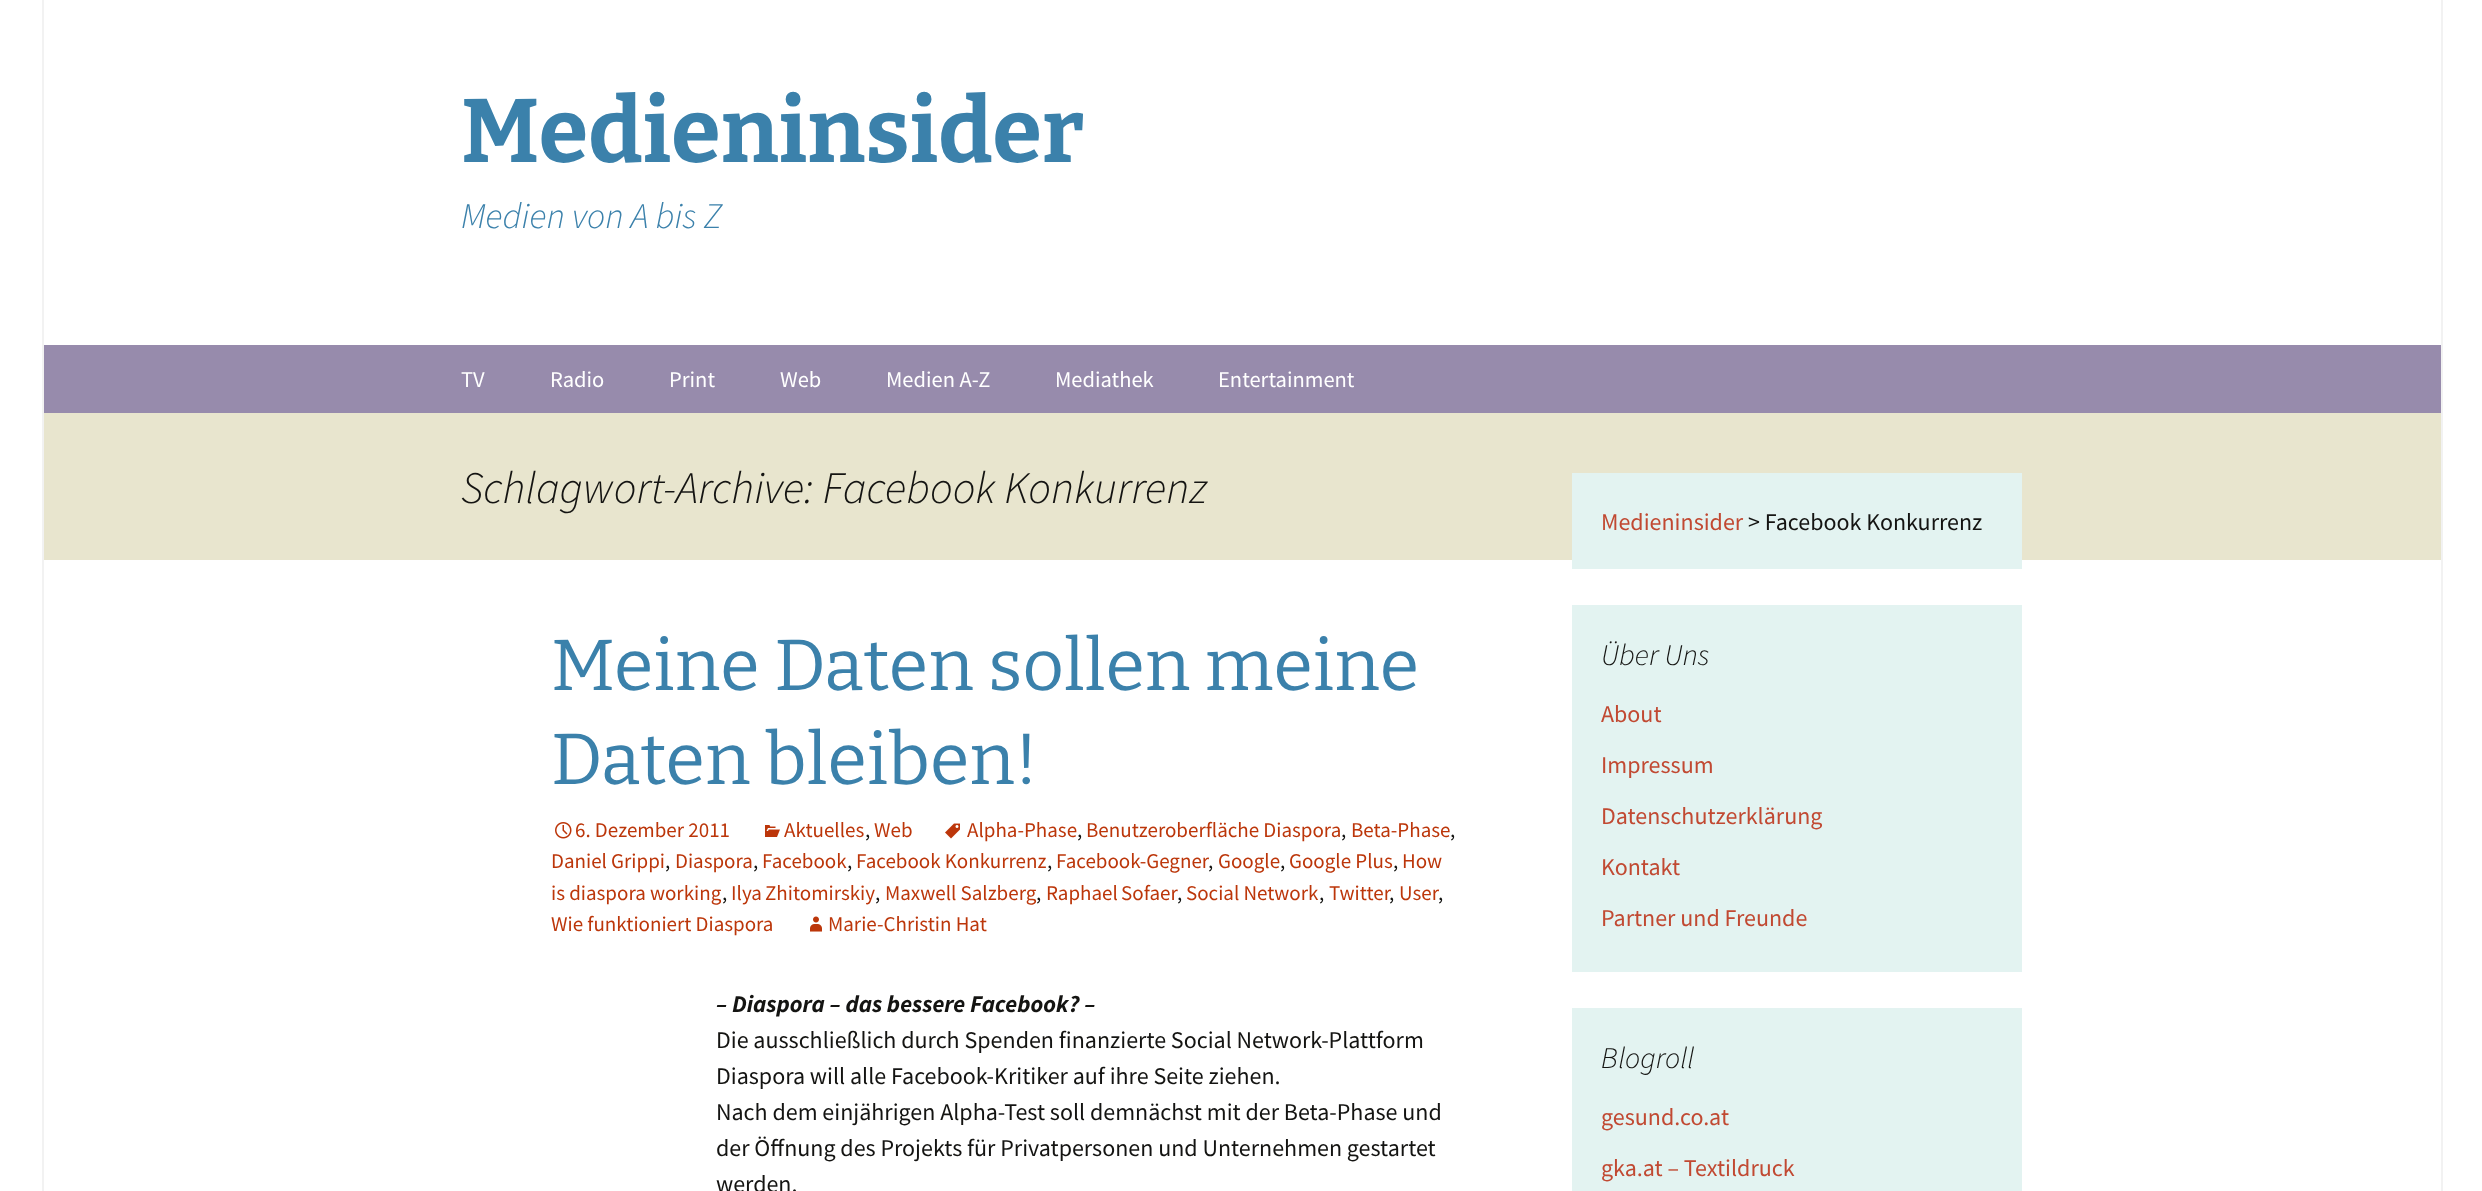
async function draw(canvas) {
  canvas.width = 2482
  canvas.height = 1191
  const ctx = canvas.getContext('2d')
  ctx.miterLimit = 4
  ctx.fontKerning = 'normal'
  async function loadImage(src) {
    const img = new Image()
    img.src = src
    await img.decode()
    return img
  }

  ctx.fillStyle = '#fff'
  ctx.fillRect(0, 0, 2482, 1191)
  ctx.fillStyle = '#f2f2f2'
  ctx.fillRect(2441, 0, 2, 1191)
  ctx.fillRect(42, 0, 2, 1191)
  ctx.font = 'bold 90px Bitter'
  ctx.fillStyle = '#3b81ab'
  ctx.fillText('Medieninsider', 461, 162)
  ctx.font = 'italic 300 36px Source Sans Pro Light'
  ctx.fillText('Medien von A bis Z', 461, 228)
  ctx.fillStyle = '#978bac'
  ctx.fillRect(44, 345, 2397, 68)
  ctx.font = '22.5px Source Sans Pro'
  ctx.fillStyle = '#fff'
  ctx.fillText('TV', 461, 387)
  ctx.fillText('Radio', 550, 387)
  ctx.fillText('Print', 669, 387)
  ctx.fillText('Web', 780, 387)
  ctx.fillText('Medien A-Z', 886, 387)
  ctx.fillText('Mediathek', 1055, 387)
  ctx.fillText('Entertainment', 1218, 387)
  ctx.fillStyle = '#e8e5ce'
  ctx.fillRect(44, 413, 2397, 147)
  ctx.font = 'italic 300 45px Source Sans Pro Light'
  ctx.fillStyle = '#141412'
  ctx.fillText('Schlagwort-Archive: Facebook Konkurrenz', 461, 503)
  ctx.font = '72px Bitter'
  ctx.fillStyle = '#3b81ab'
  ctx.fillText('Meine Daten sollen meine', 551, 690)
  ctx.fillText('Daten bleiben!', 551, 784)
  ctx.drawImage(await loadImage('image0.png'), 945, 823, 15, 16)
  ctx.font = '21px Source Sans Pro'
  ctx.fillStyle = '#bc360a'
  ctx.fillText('Alpha-Phase', 967, 837)
  ctx.fillStyle = '#141412'
  ctx.fillText(',', 1077, 837)
  ctx.fillStyle = '#bc360a'
  ctx.fillText('Benutzeroberfläche Diaspora', 1086, 837)
  ctx.fillStyle = '#141412'
  ctx.fillText(',', 1341, 837)
  ctx.fillStyle = '#bc360a'
  ctx.fillText('Beta-Phase', 1351, 837)
  ctx.fillStyle = '#141412'
  ctx.fillText(',', 1450, 837)
  ctx.fillStyle = '#bc360a'
  ctx.fillText('Daniel Grippi', 551, 868)
  ctx.fillStyle = '#141412'
  ctx.fillText(',', 665, 868)
  ctx.fillStyle = '#bc360a'
  ctx.fillText('Diaspora', 675, 868)
  ctx.fillStyle = '#141412'
  ctx.fillText(',', 753, 868)
  ctx.fillStyle = '#bc360a'
  ctx.fillText('Facebook', 762, 868)
  ctx.fillStyle = '#141412'
  ctx.fillText(',', 847, 868)
  ctx.fillStyle = '#bc360a'
  ctx.fillText('Facebook Konkurrenz', 856, 868)
  ctx.fillStyle = '#141412'
  ctx.fillText(',', 1047, 868)
  ctx.fillStyle = '#bc360a'
  ctx.fillText('Facebook-Gegner', 1056, 868)
  ctx.fillStyle = '#141412'
  ctx.fillText(',', 1208, 868)
  ctx.fillStyle = '#bc360a'
  ctx.fillText('Google', 1218, 868)
  ctx.fillStyle = '#141412'
  ctx.fillText(',', 1280, 868)
  ctx.fillStyle = '#bc360a'
  ctx.fillText('Google Plus', 1289, 868)
  ctx.fillStyle = '#141412'
  ctx.fillText(',', 1393, 868)
  ctx.fillStyle = '#bc360a'
  ctx.fillText('How', 1402, 868)
  ctx.fillText('is diaspora working', 551, 900)
  ctx.fillStyle = '#141412'
  ctx.fillText(',', 722, 900)
  ctx.wordSpacing = '-1px'
  ctx.fillStyle = '#bc360a'
  ctx.fillText('Ilya Zhitomirskiy', 731, 900)
  ctx.wordSpacing = '0px'
  ctx.fillStyle = '#141412'
  ctx.fillText(',', 875, 900)
  ctx.fillStyle = '#bc360a'
  ctx.fillText('Maxwell Salzberg', 885, 900)
  ctx.fillStyle = '#141412'
  ctx.fillText(',', 1036, 900)
  ctx.wordSpacing = '-1px'
  ctx.fillStyle = '#bc360a'
  ctx.fillText('Raphael Sofaer', 1046, 900)
  ctx.wordSpacing = '0px'
  ctx.fillStyle = '#141412'
  ctx.fillText(',', 1177, 900)
  ctx.fillStyle = '#bc360a'
  ctx.fillText('Social Network', 1186, 900)
  ctx.fillStyle = '#141412'
  ctx.fillText(',', 1319, 900)
  ctx.fillStyle = '#bc360a'
  ctx.fillText('Twitter', 1329, 900)
  ctx.fillStyle = '#141412'
  ctx.fillText(',', 1389, 900)
  ctx.fillStyle = '#bc360a'
  ctx.fillText('User', 1399, 900)
  ctx.fillStyle = '#141412'
  ctx.fillText(',', 1438, 900)
  ctx.fillStyle = '#bc360a'
  ctx.fillText('Wie funktioniert Diaspora', 551, 931)
  ctx.drawImage(await loadImage('image1.png'), 555, 822, 17, 17)
  ctx.fillText('6. Dezember 2011', 575, 837)
  ctx.drawImage(await loadImage('image2.png'), 765, 825, 15, 12)
  ctx.fillText('Aktuelles', 784, 837)
  ctx.fillStyle = '#141412'
  ctx.fillText(',', 865, 837)
  ctx.fillStyle = '#bc360a'
  ctx.fillText('Web', 874, 837)
  ctx.drawImage(await loadImage('image3.png'), 810, 916, 12, 16)
  ctx.fillText('Marie-Christin Hat', 828, 931)
  ctx.font = 'italic bold 24px Source Sans Pro'
  ctx.fillStyle = '#141412'
  ctx.fillText('– Diaspora – das bessere Facebook? –', 716, 1012)
  ctx.font = '24px Source Sans Pro'
  ctx.fillText('Die ausschließlich durch Spenden finanzierte Social Network-Plattform', 716, 1048)
  ctx.fillText('Diaspora will alle Facebook-Kritiker auf ihre Seite ziehen.', 716, 1084)
  ctx.fillText('Nach dem einjährigen Alpha-Test soll demnächst mit der Beta-Phase und', 716, 1120)
  ctx.fillText('der Öffnung des Projekts für Privatpersonen und Unternehmen gestartet', 716, 1156)
  ctx.fillText('werden.', 716, 1192)
  ctx.fillStyle = '#e3f3f1'
  ctx.fillRect(1572, 473, 450, 96)
  ctx.fillStyle = '#c14932'
  ctx.fillText('Medieninsider', 1601, 530)
  ctx.fillStyle = '#141412'
  ctx.fillText('> Facebook Konkurrenz', 1748, 530)
  ctx.fillStyle = '#e3f3f1'
  ctx.fillRect(1572, 605, 450, 367)
  ctx.font = 'italic 300 30px Source Sans Pro Light'
  ctx.fillStyle = '#141412'
  ctx.fillText('Über Uns', 1601, 665)
  ctx.font = '24px Source Sans Pro'
  ctx.fillStyle = '#c14932'
  ctx.fillText('About', 1601, 722)
  ctx.fillText('Impressum', 1601, 773)
  ctx.fillText('Datenschutzerklärung', 1601, 824)
  ctx.fillText('Kontakt', 1601, 875)
  ctx.fillText('Partner und Freunde', 1601, 926)
  ctx.fillStyle = '#e3f3f1'
  ctx.fillRect(1572, 1008, 450, 183)
  ctx.font = 'italic 300 30px Source Sans Pro Light'
  ctx.fillStyle = '#141412'
  ctx.fillText('Blogroll', 1601, 1068)
  ctx.font = '24px Source Sans Pro'
  ctx.fillStyle = '#c14932'
  ctx.fillText('gesund.co.at', 1601, 1125)
  ctx.fillText('gka.at – Textildruck', 1601, 1176)
}

draw(document.querySelector('canvas'))
